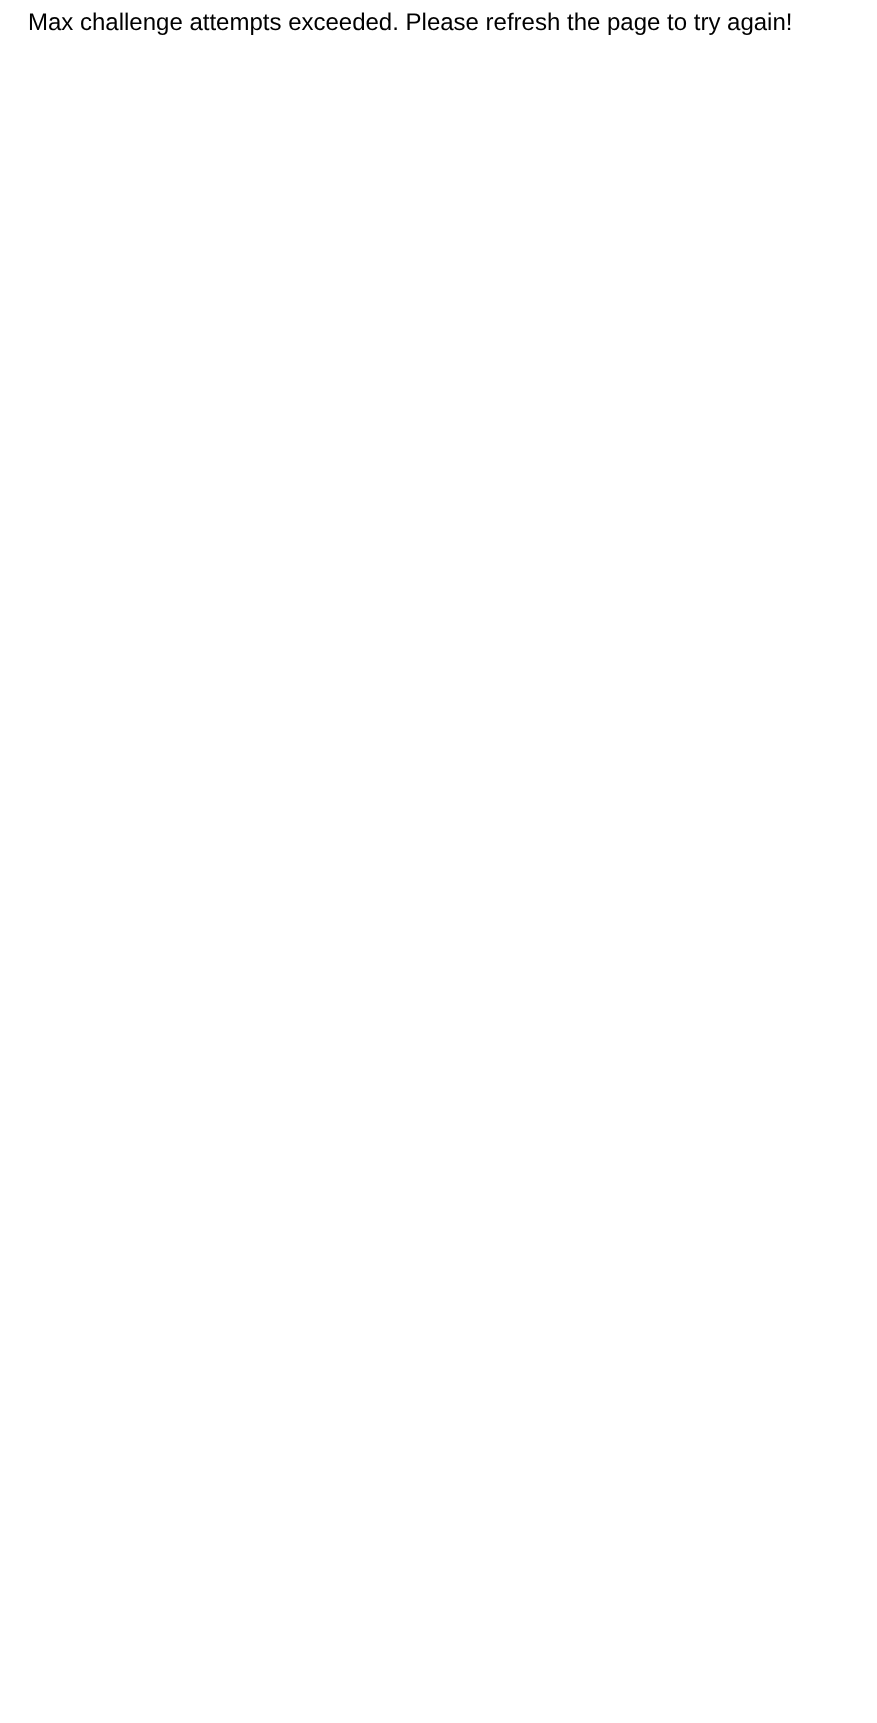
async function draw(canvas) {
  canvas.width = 877
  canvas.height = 1723
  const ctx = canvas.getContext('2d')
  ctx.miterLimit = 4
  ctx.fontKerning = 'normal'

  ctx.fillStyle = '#fff'
  ctx.fillRect(0, 0, 877, 1723)
  ctx.font = '24px Liberation Sans'
  ctx.fillStyle = '#000'
  ctx.fillText('Max challenge attempts exceeded. Please refresh the page to try again!', 28, 30)
}

draw(document.querySelector('canvas'))
